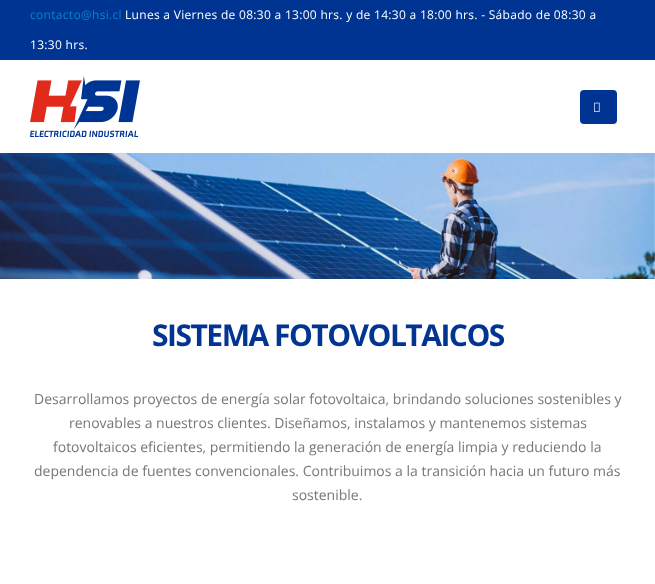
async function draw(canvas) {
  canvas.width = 655
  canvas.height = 584
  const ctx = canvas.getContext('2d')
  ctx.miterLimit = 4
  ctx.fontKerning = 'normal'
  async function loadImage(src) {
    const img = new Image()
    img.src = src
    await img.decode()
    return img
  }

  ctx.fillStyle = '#fff'
  ctx.fillRect(0, 0, 655, 584)
  ctx.fillStyle = '#003492'
  ctx.fillRect(0, 0, 655, 60)
  ctx.letterSpacing = '0.3px'
  ctx.font = '12px Open Sans'
  ctx.fillStyle = '#08c'
  ctx.fillText('contacto@hsi.cl', 30, 19)
  ctx.fillStyle = '#fff'
  ctx.fillText('Lunes a Viernes de 08:30 a 13:00 hrs. y de 14:30 a 18:00 hrs. - Sábado de 08:30 a', 125, 19)
  ctx.fillText('13:30 hrs.', 30, 49)
  ctx.drawImage(await loadImage('image0.png'), 30, 76, 110, 61)
  ctx.fillStyle = '#003492'
  ctx.beginPath()
  ctx.roundRect(580, 90, 37, 34, 4)
  ctx.fill()
  ctx.drawImage(await loadImage('image1.png'), 594, 102, 6, 10)
  ctx.drawImage(await loadImage('image2.png'), 0, 153, 655, 126)
  ctx.letterSpacing = '-1.5px'
  ctx.font = 'bold 30px Open Sans'
  ctx.fillStyle = '#023492'
  ctx.fillText('SISTEMA FOTOVOLTAICOS', 152, 346)
  ctx.letterSpacing = '0px'
  ctx.font = '14px Open Sans'
  ctx.fillStyle = '#777'
  ctx.fillText('Desarrollamos proyectos de energía solar fotovoltaica, brindando soluciones sostenibles y', 34, 404)
  ctx.fillText('renovables a nuestros clientes. Diseñamos, instalamos y mantenemos sistemas', 69, 428)
  ctx.fillText('fotovoltaicos eficientes, permitiendo la generación de energía limpia y reduciendo la', 53, 452)
  ctx.fillText('dependencia de fuentes convencionales. Contribuimos a la transición hacia un futuro más', 34, 476)
  ctx.fillText('sostenible.', 292, 500)
}

draw(document.querySelector('canvas'))
